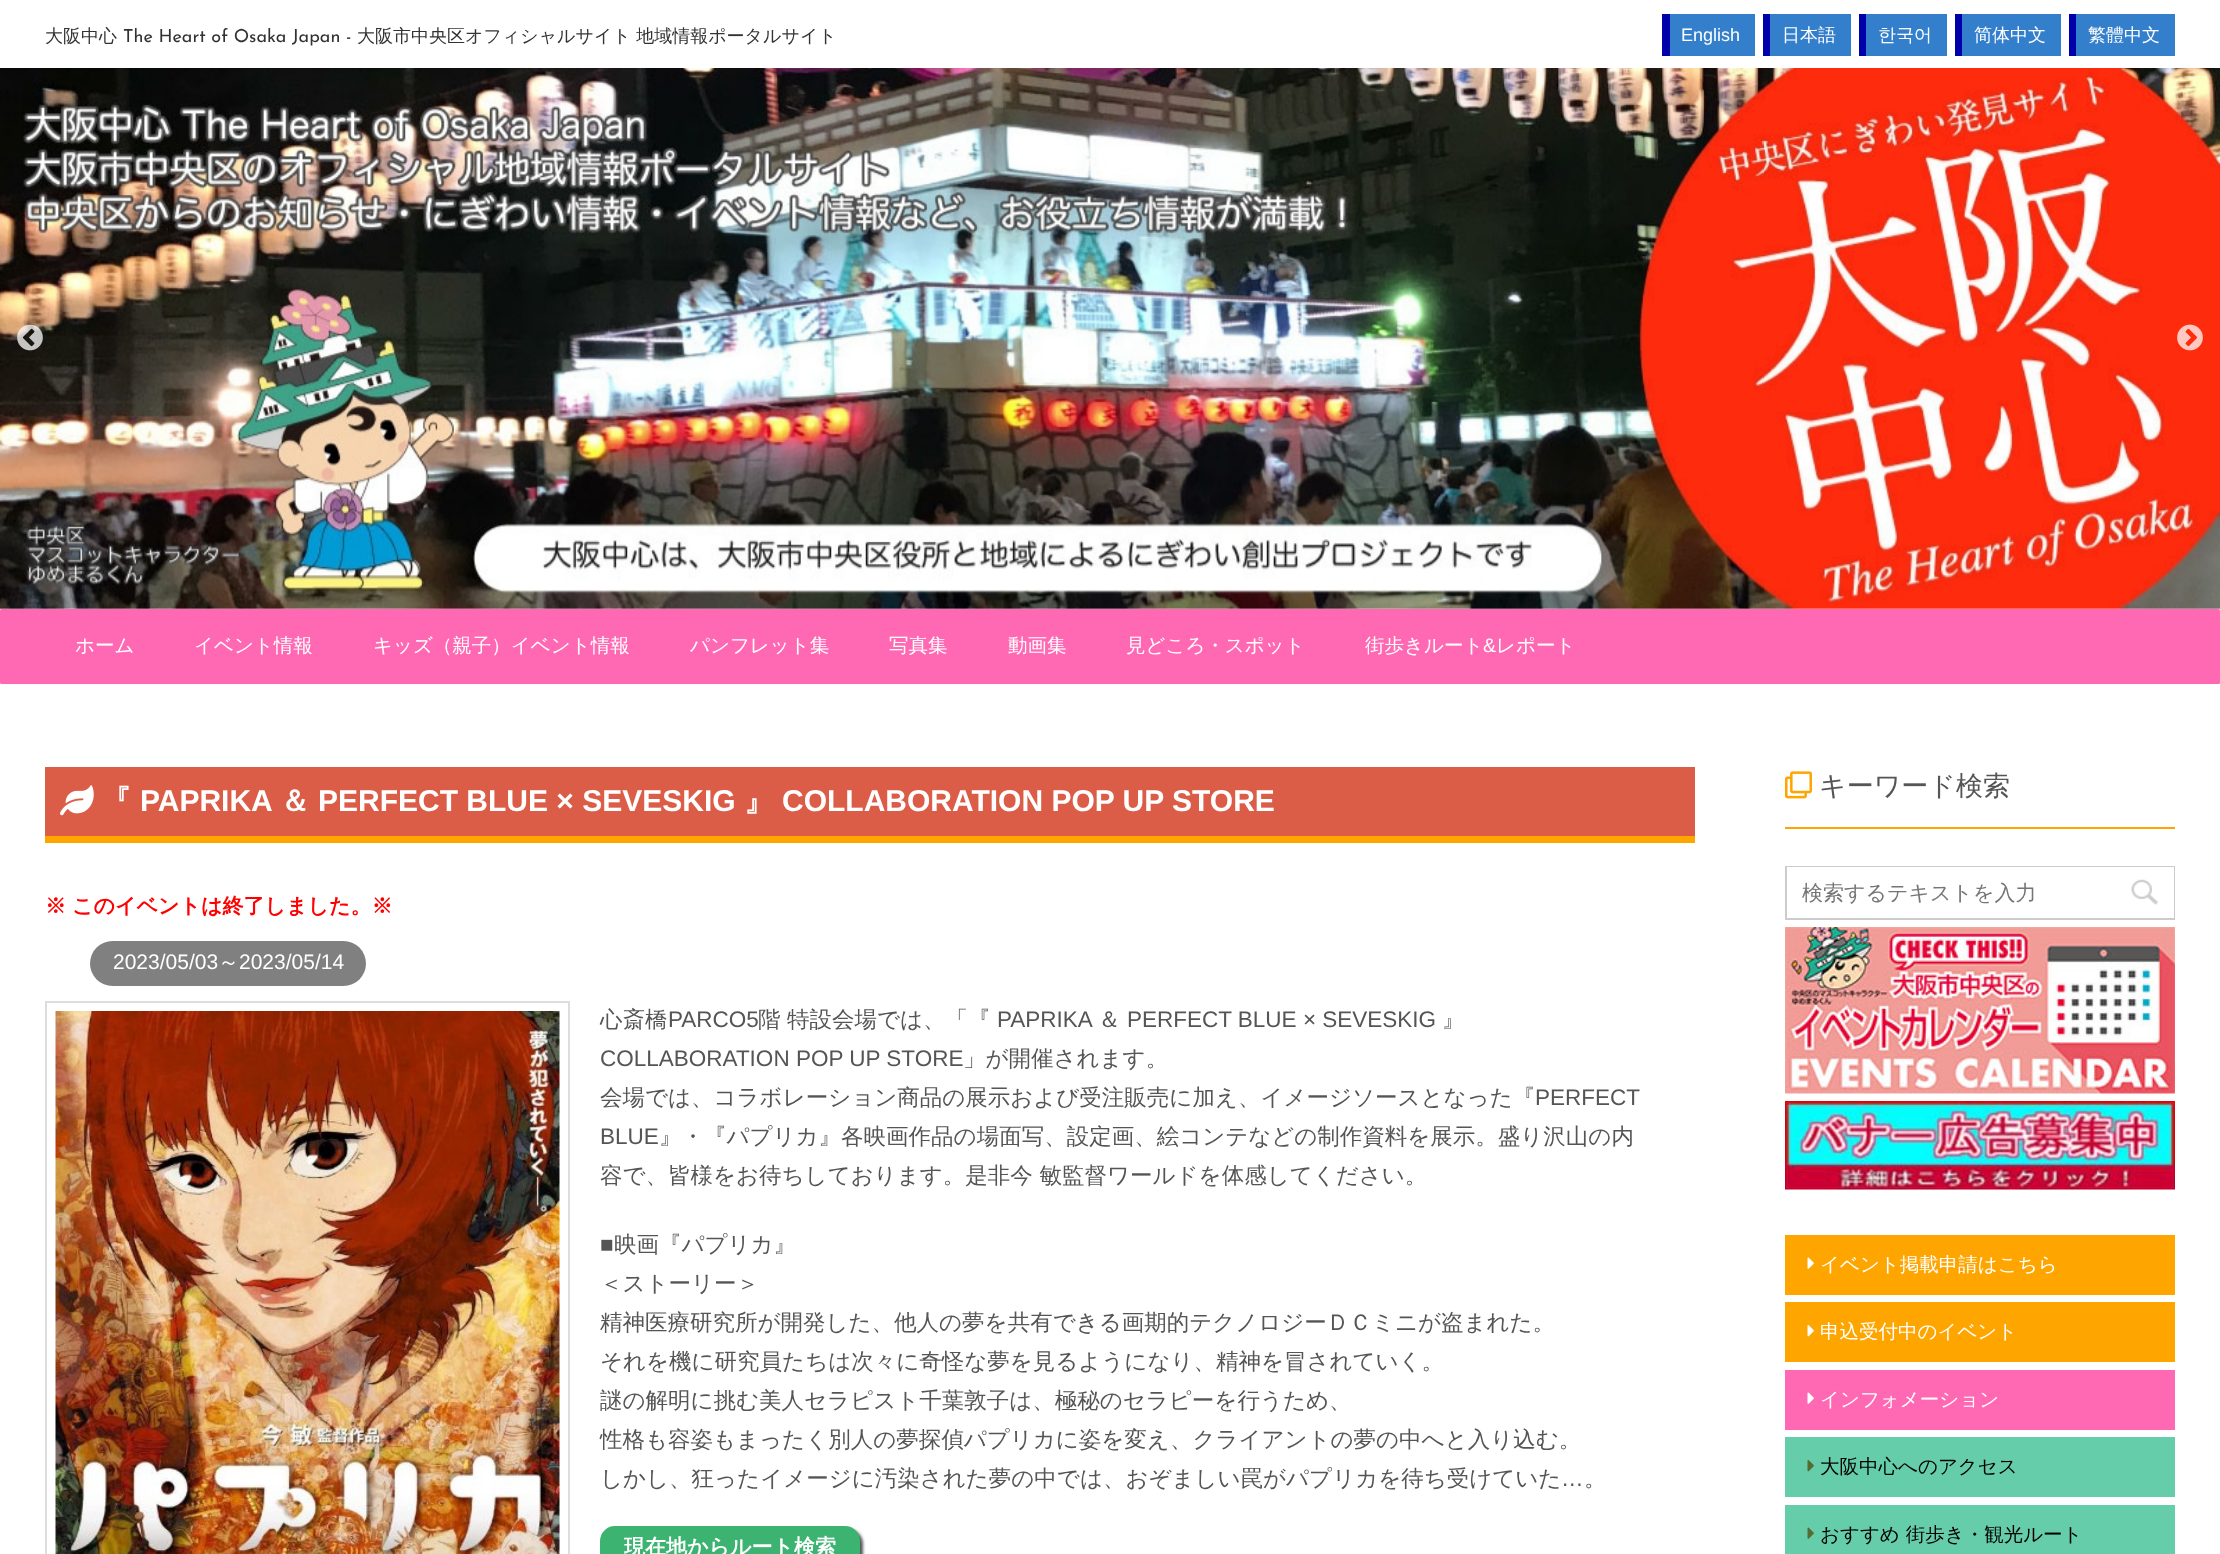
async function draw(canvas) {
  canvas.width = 2220
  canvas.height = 1554
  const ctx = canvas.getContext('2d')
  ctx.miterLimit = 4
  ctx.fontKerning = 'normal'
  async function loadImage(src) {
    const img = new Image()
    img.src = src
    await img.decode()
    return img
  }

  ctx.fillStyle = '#fff'
  ctx.fillRect(0, 0, 2220, 1554)
  ctx.font = '500 18px WenQuanYi Zen Hei'
  ctx.fillStyle = '#333'
  ctx.fillText('大阪中心', 45, 42)
  ctx.font = '18px Josefin Sans'
  ctx.fillText('The Heart of Osaka Japan -', 123, 42)
  ctx.font = '500 18px WenQuanYi Zen Hei'
  ctx.fillText('大阪市中央区オフィシャルサイト 地域情報ポータルサイト', 357, 42)
  ctx.fillStyle = '#337fcc'
  ctx.fillRect(1670, 14, 85, 42)
  ctx.font = '18px Liberation Sans'
  ctx.fillStyle = '#fff'
  ctx.fillText('English', 1681, 41)
  ctx.fillStyle = '#00a'
  ctx.fillRect(1662, 14, 8, 42)
  ctx.fillStyle = '#337fcc'
  ctx.fillRect(1770, 14, 81, 42)
  ctx.font = '500 18px WenQuanYi Zen Hei'
  ctx.fillStyle = '#fff'
  ctx.fillText('日本語', 1782, 41)
  ctx.fillStyle = '#00a'
  ctx.fillRect(1763, 14, 7, 42)
  ctx.fillStyle = '#337fcc'
  ctx.fillRect(1866, 14, 81, 42)
  ctx.fillStyle = '#fff'
  ctx.fillText('한국어', 1878, 41)
  ctx.fillStyle = '#00a'
  ctx.fillRect(1859, 14, 7, 42)
  ctx.fillStyle = '#337fcc'
  ctx.fillRect(1962, 14, 99, 42)
  ctx.fillStyle = '#fff'
  ctx.fillText('简体中文', 1974, 41)
  ctx.fillStyle = '#00a'
  ctx.fillRect(1955, 14, 7, 42)
  ctx.fillStyle = '#337fcc'
  ctx.fillRect(2076, 14, 99, 42)
  ctx.fillStyle = '#fff'
  ctx.fillText('繁體中文', 2088, 41)
  ctx.fillStyle = '#00a'
  ctx.fillRect(2069, 14, 7, 42)
  ctx.drawImage(await loadImage('image0.png'), 0, 68, 2220, 541)
  ctx.drawImage(await loadImage('image1.png'), 17, 324, 26, 27)
  ctx.drawImage(await loadImage('image2.png'), 2177, 324, 26, 27)
  ctx.fillStyle = '#ff69b4'
  ctx.beginPath()
  ctx.roundRect(0, 609, 2220, 75, 1.5)
  ctx.fill()
  ctx.font = '500 19.5px WenQuanYi Zen Hei'
  ctx.fillStyle = '#fff'
  ctx.fillText('ホーム', 75, 652)
  ctx.fillText('イベント情報', 194, 652)
  ctx.fillText('キッズ（親子）イベント情報', 373, 652)
  ctx.fillText('パンフレット集', 690, 652)
  ctx.fillText('写真集', 889, 652)
  ctx.fillText('動画集', 1008, 652)
  ctx.fillText('見どころ・スポット', 1126, 652)
  ctx.fillText('街歩きルート', 1365, 652)
  ctx.font = '19.5px Liberation Sans'
  ctx.fillText('&', 1483, 652)
  ctx.font = '500 19.5px WenQuanYi Zen Hei'
  ctx.fillText('レポート', 1496, 652)
  ctx.fillStyle = '#dc5d47'
  ctx.fillRect(45, 767, 1650, 69)
  ctx.fillStyle = '#ffa500'
  ctx.fillRect(45, 836, 1650, 7)
  ctx.drawImage(await loadImage('image3.png'), 60, 785, 34, 31)
  ctx.font = 'bold 30px WenQuanYi Zen Hei'
  ctx.fillStyle = '#fff'
  ctx.fillText('『', 101, 811)
  ctx.font = 'bold 30px Liberation Sans'
  ctx.fillText('PAPRIKA', 140, 811)
  ctx.font = 'bold 30px WenQuanYi Zen Hei'
  ctx.fillText('＆', 280, 811)
  ctx.font = 'bold 30px Liberation Sans'
  ctx.fillText('PERFECT BLUE × SEVESKIG', 318, 811)
  ctx.font = 'bold 30px WenQuanYi Zen Hei'
  ctx.fillText('』', 744, 811)
  ctx.font = 'bold 30px Liberation Sans'
  ctx.fillText('COLLABORATION POP UP STORE', 782, 811)
  ctx.font = 'bold 21px WenQuanYi Zen Hei'
  ctx.fillStyle = '#f00'
  ctx.fillText('※', 45, 913)
  ctx.fillText('このイベントは終了しました。※', 72, 913)
  ctx.fillStyle = '#808080'
  ctx.beginPath()
  ctx.roundRect(90, 941, 276, 45, 22.5)
  ctx.fill()
  ctx.font = '21px Liberation Sans'
  ctx.fillStyle = '#fff'
  ctx.fillText('2023/05/03', 113, 969)
  ctx.font = '500 21px WenQuanYi Zen Hei'
  ctx.fillText('～', 218, 969)
  ctx.font = '21px Liberation Sans'
  ctx.fillText('2023/05/14', 239, 969)
  ctx.strokeStyle = '#ddd'
  ctx.lineWidth = 2
  ctx.strokeRect(46, 1002, 523, 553)
  ctx.drawImage(await loadImage('image4.png'), 55, 1011, 505, 543)
  ctx.font = '500 22.5px WenQuanYi Zen Hei'
  ctx.fillStyle = '#555'
  ctx.fillText('心斎橋', 600, 1027)
  ctx.font = '22.5px Liberation Sans'
  ctx.fillText('PARCO5', 668, 1027)
  ctx.font = '500 22.5px WenQuanYi Zen Hei'
  ctx.fillText('階', 758, 1027)
  ctx.fillText('特設会場では、「『', 787, 1027)
  ctx.font = '22.5px Liberation Sans'
  ctx.fillText('PAPRIKA', 997, 1027)
  ctx.font = '500 22.5px WenQuanYi Zen Hei'
  ctx.fillText('＆', 1098, 1027)
  ctx.font = '22.5px Liberation Sans'
  ctx.fillText('PERFECT BLUE × SEVESKIG', 1127, 1027)
  ctx.font = '500 22.5px WenQuanYi Zen Hei'
  ctx.fillText('』', 1442, 1027)
  ctx.font = '22.5px Liberation Sans'
  ctx.fillText('COLLABORATION POP UP STORE', 600, 1066)
  ctx.font = '500 22.5px WenQuanYi Zen Hei'
  ctx.fillText('」が開催されます。', 963, 1066)
  ctx.fillText('会場では、コラボレーション商品の展示および受注販売に加え、イメージソースとなった『', 600, 1105)
  ctx.font = '22.5px Liberation Sans'
  ctx.fillText('PERFECT', 1535, 1105)
  ctx.fillText('BLUE', 600, 1144)
  ctx.font = '500 22.5px WenQuanYi Zen Hei'
  ctx.fillText('』・『パプリカ』各映画作品の場面写、設定画、絵コンテなどの制作資料を展示。盛り沢山の内', 659, 1144)
  ctx.fillText('容で、皆様をお待ちしております。是非今 敏監督ワールドを体感してください。', 600, 1183)
  ctx.font = '22.5px Liberation Sans'
  ctx.fillText('■', 600, 1252)
  ctx.font = '500 22.5px WenQuanYi Zen Hei'
  ctx.fillText('映画『パプリカ』', 614, 1252)
  ctx.fillText('＜ストーリー＞', 600, 1291)
  ctx.fillText('精神医療研究所が開発した、他人の夢を共有できる画期的テクノロジーＤＣミニが盗まれた。', 600, 1330)
  ctx.fillText('それを機に研究員たちは次々に奇怪な夢を見るようになり、精神を冒されていく。', 600, 1369)
  ctx.fillText('謎の解明に挑む美人セラピスト千葉敦子は、極秘のセラピーを行うため、', 600, 1408)
  ctx.fillText('性格も容姿もまったく別人の夢探偵パプリカに姿を変え、クライアントの夢の中へと入り込む。', 600, 1447)
  ctx.fillText('しかし、狂ったイメージに汚染された夢の中では、おぞましい罠がパプリカを待ち受けていた', 600, 1486)
  ctx.font = '22.5px Liberation Sans'
  ctx.fillText('…', 1561, 1486)
  ctx.font = '500 22.5px WenQuanYi Zen Hei'
  ctx.fillText('。', 1584, 1486)
  ctx.filter = 'blur(1.5px)'
  ctx.beginPath()
  ctx.roundRect(603, 1529, 260, 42, 15)
  ctx.fill()
  ctx.filter = 'none'
  ctx.fillStyle = '#3cb371'
  ctx.beginPath()
  ctx.roundRect(601, 1527, 258, 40, 14)
  ctx.fill()
  ctx.strokeStyle = '#3cb371'
  ctx.stroke()
  ctx.font = 'bold 21px WenQuanYi Zen Hei'
  ctx.fillStyle = '#fff'
  ctx.fillText('現在地からルート検索', 624, 1554)
  ctx.fillStyle = '#ffa500'
  ctx.fillRect(1785, 827, 390, 2)
  ctx.drawImage(await loadImage('image5.png'), 1785, 771, 27, 28)
  ctx.font = '500 27px WenQuanYi Zen Hei'
  ctx.fillStyle = '#555'
  ctx.fillText('キーワード検索', 1819, 795)
  ctx.strokeStyle = '#ccc'
  ctx.strokeRect(1786, 867, 388, 52)
  ctx.fillStyle = '#fff'
  ctx.fillRect(1787, 867, 387, 51)
  ctx.font = '500 21px WenQuanYi Zen Hei'
  ctx.fillStyle = '#757575'
  ctx.fillText('検索するテキストを入力', 1802, 900)
  ctx.drawImage(await loadImage('image6.png'), 2131, 879, 27, 26)
  ctx.drawImage(await loadImage('image7.png'), 1785, 927, 390, 167)
  ctx.drawImage(await loadImage('image8.png'), 1785, 1101, 390, 89)
  ctx.fillStyle = '#ffa500'
  ctx.fillRect(1785, 1235, 390, 60)
  ctx.drawImage(await loadImage('image9.png'), 1807, 1257, 7, 12)
  ctx.font = '500 19.5px WenQuanYi Zen Hei'
  ctx.fillStyle = '#fff'
  ctx.fillText('イベント掲載申請はこちら', 1820, 1271)
  ctx.fillStyle = '#ffa500'
  ctx.fillRect(1785, 1302, 390, 60)
  ctx.drawImage(await loadImage('image10.png'), 1807, 1325, 7, 12)
  ctx.fillStyle = '#fff'
  ctx.fillText('申込受付中のイベント', 1820, 1338)
  ctx.fillStyle = '#ff69b4'
  ctx.fillRect(1785, 1370, 390, 60)
  ctx.drawImage(await loadImage('image11.png'), 1807, 1392, 7, 12)
  ctx.fillStyle = '#fff'
  ctx.fillText('インフォメーション', 1820, 1406)
  ctx.fillStyle = '#66cdaa'
  ctx.fillRect(1785, 1437, 390, 60)
  ctx.drawImage(await loadImage('image12.png'), 1807, 1460, 7, 12)
  ctx.fillStyle = '#000'
  ctx.fillText('大阪中心へのアクセス', 1820, 1473)
  ctx.fillStyle = '#66cdaa'
  ctx.fillRect(1785, 1505, 390, 49)
  ctx.drawImage(await loadImage('image13.png'), 1807, 1527, 7, 12)
  ctx.fillStyle = '#000'
  ctx.fillText('おすすめ 街歩き・観光ルート', 1820, 1541)
}

draw(document.querySelector('canvas'))
